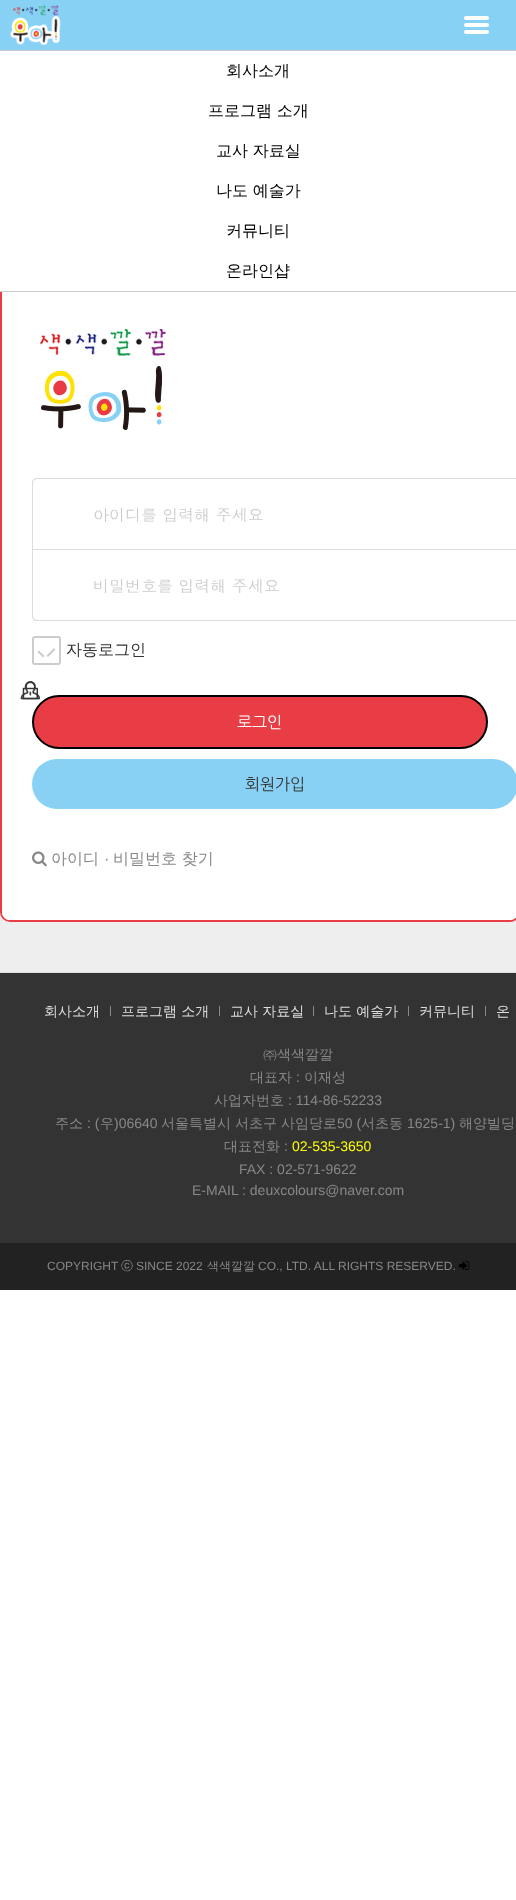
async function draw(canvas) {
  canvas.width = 516
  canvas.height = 1900
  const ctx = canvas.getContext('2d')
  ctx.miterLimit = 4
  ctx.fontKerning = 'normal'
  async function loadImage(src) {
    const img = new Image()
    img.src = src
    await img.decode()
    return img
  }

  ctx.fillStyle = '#fff'
  ctx.fillRect(0, 0, 516, 1900)
  ctx.fillStyle = '#87d1f5'
  ctx.fillRect(0, 0, 516, 50)
  ctx.drawImage(await loadImage('image0.png'), 10, 5, 51, 40)
  ctx.fillStyle = '#fff'
  ctx.beginPath()
  ctx.roundRect(464, 16, 25, 4, 2)
  ctx.fill()
  ctx.beginPath()
  ctx.roundRect(464, 23, 25, 4, 2)
  ctx.fill()
  ctx.beginPath()
  ctx.roundRect(464, 30, 25, 4, 2)
  ctx.fill()
  ctx.fillStyle = '#eee'
  ctx.fillRect(0, 912, 516, 60)
  ctx.beginPath()
  ctx.roundRect(1, 177, 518, 744, 9)
  ctx.strokeStyle = '#e83d45'
  ctx.lineWidth = 2
  ctx.stroke()
  ctx.fillStyle = '#fff'
  ctx.beginPath()
  ctx.moveTo(2, 278)
  ctx.lineTo(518, 278)
  ctx.lineTo(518, 912)
  ctx.bezierCurveTo(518, 916.5, 514.5, 920, 510, 920)
  ctx.lineTo(10, 920)
  ctx.bezierCurveTo(5.5, 920, 2, 916.5, 2, 912)
  ctx.closePath()
  ctx.fill()
  ctx.fillRect(0, 176, 516, 115)
  ctx.fillStyle = '#ccc'
  ctx.fillRect(0, 50, 516, 1)
  ctx.fillRect(0, 291, 516, 1)
  ctx.font = '500 16px WenQuanYi Zen Hei'
  ctx.fillStyle = '#000'
  ctx.fillText('회사소개', 226, 76)
  ctx.fillText('프로그램 소개', 208, 116)
  ctx.fillText('교사 자료실', 216, 156)
  ctx.fillText('나도 예술가', 216, 196)
  ctx.fillText('커뮤니티', 226, 236)
  ctx.fillText('온라인샵', 226, 276)
  ctx.drawImage(await loadImage('image1.png'), 40, 329, 126, 101)
  ctx.fillStyle = '#ddd'
  ctx.beginPath()
  ctx.moveTo(37, 478)
  ctx.bezierCurveTo(34, 478, 32, 480, 32, 483)
  ctx.lineTo(32, 550)
  ctx.lineTo(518, 550)
  ctx.lineTo(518, 549)
  ctx.lineTo(33, 549)
  ctx.lineTo(33, 483)
  ctx.bezierCurveTo(33, 481, 35, 479, 37, 479)
  ctx.lineTo(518, 479)
  ctx.lineTo(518, 478)
  ctx.closePath()
  ctx.fill()
  ctx.font = '16px Dotum'
  ctx.fillStyle = '#ccc'
  ctx.fillText('아이디를 입력해 주세요', 93, 521)
  ctx.fillStyle = '#e83d45'
  ctx.beginPath()
  ctx.roundRect(33, 696, 454, 52, 26)
  ctx.fill()
  ctx.strokeStyle = '#000'
  ctx.stroke()
  ctx.drawImage(await loadImage('image2.png'), 20, 681, 20, 19)
  ctx.fillStyle = '#ddd'
  ctx.beginPath()
  ctx.moveTo(32, 550)
  ctx.lineTo(33, 550)
  ctx.lineTo(33, 616)
  ctx.bezierCurveTo(33, 618, 35, 620, 37, 620)
  ctx.lineTo(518, 620)
  ctx.lineTo(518, 621)
  ctx.lineTo(37, 621)
  ctx.bezierCurveTo(34, 621, 32, 619, 32, 616)
  ctx.closePath()
  ctx.fill()
  ctx.fillStyle = '#ccc'
  ctx.fillText('비밀번호를 입력해 주세요', 93, 592)
  ctx.drawImage(await loadImage('image3.png'), 22, 681, 16, 19)
  ctx.beginPath()
  ctx.roundRect(33, 637, 27, 27, 2)
  ctx.strokeStyle = '#ccc'
  ctx.stroke()
  ctx.beginPath()
  ctx.moveTo(37.5, 652)
  ctx.lineTo(39, 650.5)
  ctx.lineTo(44.5, 656)
  ctx.lineTo(43, 657.5)
  ctx.closePath()
  ctx.moveTo(54, 648)
  ctx.lineTo(55.5, 649.5)
  ctx.lineTo(48, 657)
  ctx.lineTo(46.5, 655.5)
  ctx.closePath()
  ctx.fill()
  ctx.font = '500 16px WenQuanYi Zen Hei'
  ctx.fillStyle = '#333'
  ctx.fillText('자동로그인', 66, 655)
  ctx.font = '16px NanumGothic'
  ctx.fillStyle = '#fff'
  ctx.fillText('로그인', 237, 728)
  ctx.fillStyle = '#88d1f5'
  ctx.beginPath()
  ctx.roundRect(32, 759, 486, 50, 25)
  ctx.fill()
  ctx.fillStyle = '#333'
  ctx.fillText('회원가입', 245, 790)
  ctx.drawImage(await loadImage('image4.png'), 32, 851, 15, 16)
  ctx.font = '500 16px WenQuanYi Zen Hei'
  ctx.fillStyle = '#888'
  ctx.fillText('아이디', 51, 864)
  ctx.font = '16px Liberation Sans'
  ctx.fillText('·', 104, 864)
  ctx.font = '500 16px WenQuanYi Zen Hei'
  ctx.fillText('비밀번호 찾기', 113, 864)
  ctx.fillStyle = '#ddd'
  ctx.fillRect(0, 972, 516, 1)
  ctx.fillStyle = '#333'
  ctx.fillRect(0, 973, 516, 270)
  ctx.font = '500 14px WenQuanYi Zen Hei'
  ctx.fillStyle = '#ddd'
  ctx.fillText('회사소개', 44, 1016)
  ctx.fillStyle = '#888'
  ctx.fillRect(110, 1006, 1, 10)
  ctx.fillStyle = '#ddd'
  ctx.fillText('프로그램 소개', 121, 1016)
  ctx.fillStyle = '#888'
  ctx.fillRect(219, 1006, 1, 10)
  ctx.fillStyle = '#ddd'
  ctx.fillText('교사 자료실', 230, 1016)
  ctx.fillStyle = '#888'
  ctx.fillRect(313, 1006, 1, 10)
  ctx.fillStyle = '#ddd'
  ctx.fillText('나도 예술가', 324, 1016)
  ctx.fillStyle = '#888'
  ctx.fillRect(408, 1006, 1, 10)
  ctx.fillStyle = '#ddd'
  ctx.fillText('커뮤니티', 419, 1016)
  ctx.fillStyle = '#888'
  ctx.fillRect(485, 1006, 1, 10)
  ctx.fillStyle = '#ddd'
  ctx.fillText('온', 496, 1016)
  ctx.fillStyle = '#888'
  ctx.fillText('㈜색색깔깔', 263, 1059)
  ctx.fillText('대표자', 250, 1082)
  ctx.font = '14px Liberation Sans'
  ctx.fillText(':', 296, 1082)
  ctx.font = '500 14px WenQuanYi Zen Hei'
  ctx.fillText('이재성', 304, 1082)
  ctx.fillText('사업자번호', 214, 1105)
  ctx.font = '14px Liberation Sans'
  ctx.fillText(': 114-86-52233', 288, 1105)
  ctx.font = '500 14px WenQuanYi Zen Hei'
  ctx.fillText('주소', 55, 1128)
  ctx.font = '14px Liberation Sans'
  ctx.fillText(': (', 87, 1128)
  ctx.font = '500 14px WenQuanYi Zen Hei'
  ctx.fillText('우', 100, 1128)
  ctx.font = '14px Liberation Sans'
  ctx.fillText(')06640', 114, 1128)
  ctx.font = '500 14px WenQuanYi Zen Hei'
  ctx.fillText('서울특별시', 161, 1128)
  ctx.fillText('서초구', 235, 1128)
  ctx.fillText('사임당로', 281, 1128)
  ctx.font = '14px Liberation Sans'
  ctx.fillText('50 (', 337, 1128)
  ctx.font = '500 14px WenQuanYi Zen Hei'
  ctx.fillText('서초동', 361, 1128)
  ctx.font = '14px Liberation Sans'
  ctx.fillText('1625-1)', 407, 1128)
  ctx.font = '500 14px WenQuanYi Zen Hei'
  ctx.fillText('해양빌딩', 459, 1128)
  ctx.fillText('대표전화', 224, 1151)
  ctx.font = '14px Liberation Sans'
  ctx.fillText(':', 284, 1151)
  ctx.fillStyle = '#ff0'
  ctx.fillText('02-535-3650', 292, 1151)
  ctx.fillStyle = '#888'
  ctx.fillText('FAX : 02-571-9622', 239, 1174)
  ctx.fillText('E-MAIL : deuxcolours@naver.com', 192, 1195)
  ctx.fillStyle = '#222'
  ctx.fillRect(0, 1243, 516, 47)
  ctx.font = '12px Liberation Sans'
  ctx.fillStyle = '#888'
  ctx.fillText('COPYRIGHT', 47, 1270)
  ctx.font = '500 12px WenQuanYi Zen Hei'
  ctx.fillText('ⓒ', 121, 1270)
  ctx.font = '12px Liberation Sans'
  ctx.fillText('SINCE 2022', 136, 1270)
  ctx.font = '500 12px WenQuanYi Zen Hei'
  ctx.fillText('색색깔깔', 207, 1270)
  ctx.font = '12px Liberation Sans'
  ctx.fillText('CO., LTD. ALL RIGHTS RESERVED.', 258, 1270)
  ctx.drawImage(await loadImage('image5.png'), 459, 1261, 11, 9)
}

draw(document.querySelector('canvas'))
